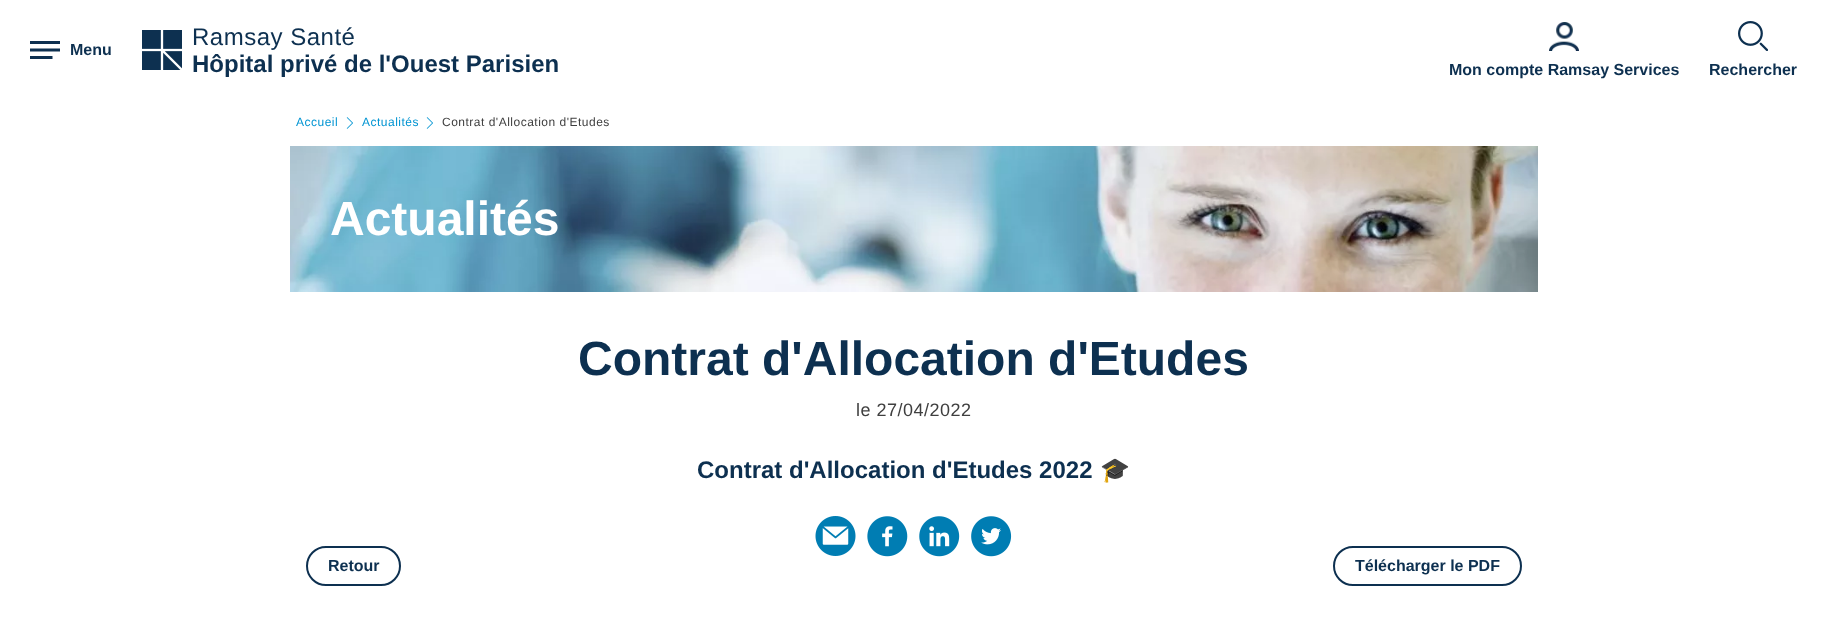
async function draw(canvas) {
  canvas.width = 1827
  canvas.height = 630
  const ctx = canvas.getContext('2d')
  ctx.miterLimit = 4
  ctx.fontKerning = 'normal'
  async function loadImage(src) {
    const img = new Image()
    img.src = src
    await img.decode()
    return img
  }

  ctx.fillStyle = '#fff'
  ctx.fillRect(0, 0, 1827, 630)
  ctx.drawImage(await loadImage('image0.png'), 30, 41, 30, 18)
  ctx.font = 'bold 16px Liberation Sans'
  ctx.fillStyle = '#0d3050'
  ctx.fillText('Menu', 70, 55)
  ctx.drawImage(await loadImage('image1.png'), 142, 30, 40, 40)
  ctx.letterSpacing = '0.5px'
  ctx.font = '24px Liberation Sans'
  ctx.fillText('Ramsay Santé', 192, 45)
  ctx.letterSpacing = '0px'
  ctx.font = 'bold 24px Liberation Sans'
  ctx.fillText('Hôpital privé de l\'Ouest Parisien', 192, 72)
  ctx.drawImage(await loadImage('image2.png'), 1549, 22, 30, 29)
  ctx.font = 'bold 16px Liberation Sans'
  ctx.fillText('Mon compte Ramsay Services', 1449, 75)
  ctx.drawImage(await loadImage('image3.png'), 1738, 21, 30, 30)
  ctx.fillText('Rechercher', 1709, 75)
  ctx.letterSpacing = '0.5px'
  ctx.font = '12px Liberation Sans'
  ctx.fillStyle = '#0094d2'
  ctx.fillText('Accueil', 296, 126)
  ctx.drawImage(await loadImage('image4.png'), 346, 117, 7, 12)
  ctx.fillText('Actualités', 362, 126)
  ctx.drawImage(await loadImage('image4.png'), 426, 117, 7, 12)
  ctx.fillStyle = '#3f3f3f'
  ctx.fillText('Contrat d\'Allocation d\'Etudes', 442, 126)
  ctx.drawImage(await loadImage('image5.png'), 290, 146, 1248, 146)
  ctx.letterSpacing = '0px'
  ctx.font = 'bold 48px Liberation Sans'
  ctx.fillStyle = '#fff'
  ctx.fillText('Actualités', 330, 235)
  ctx.fillStyle = '#0d3050'
  ctx.fillText('Contrat d\'Allocation d\'Etudes', 578, 375)
  ctx.letterSpacing = '0.5px'
  ctx.font = '18px Liberation Sans'
  ctx.fillStyle = '#3f3f3f'
  ctx.fillText('le 27/04/2022', 856, 416)
  ctx.letterSpacing = '0px'
  ctx.font = 'bold 24px Liberation Sans'
  ctx.fillStyle = '#0d3050'
  ctx.fillText('Contrat d\'Allocation d\'Etudes 2022', 697, 478)
  ctx.font = 'bold 24px Noto Color Emoji'
  ctx.fillText('🎓', 1100, 478)
  ctx.drawImage(await loadImage('image6.png'), 815, 516, 41, 40)
  ctx.drawImage(await loadImage('image7.png'), 867, 516, 41, 41)
  ctx.drawImage(await loadImage('image8.png'), 919, 516, 41, 41)
  ctx.drawImage(await loadImage('image9.png'), 971, 516, 41, 41)
  ctx.beginPath()
  ctx.roundRect(307, 547, 93, 38, 19)
  ctx.strokeStyle = '#0d3050'
  ctx.lineWidth = 2
  ctx.stroke()
  ctx.font = 'bold 16px Liberation Sans'
  ctx.fillText('Retour', 328, 571)
  ctx.beginPath()
  ctx.roundRect(1334, 547, 187, 38, 19)
  ctx.stroke()
  ctx.fillText('Télécharger le PDF', 1355, 571)
}

draw(document.querySelector('canvas'))
